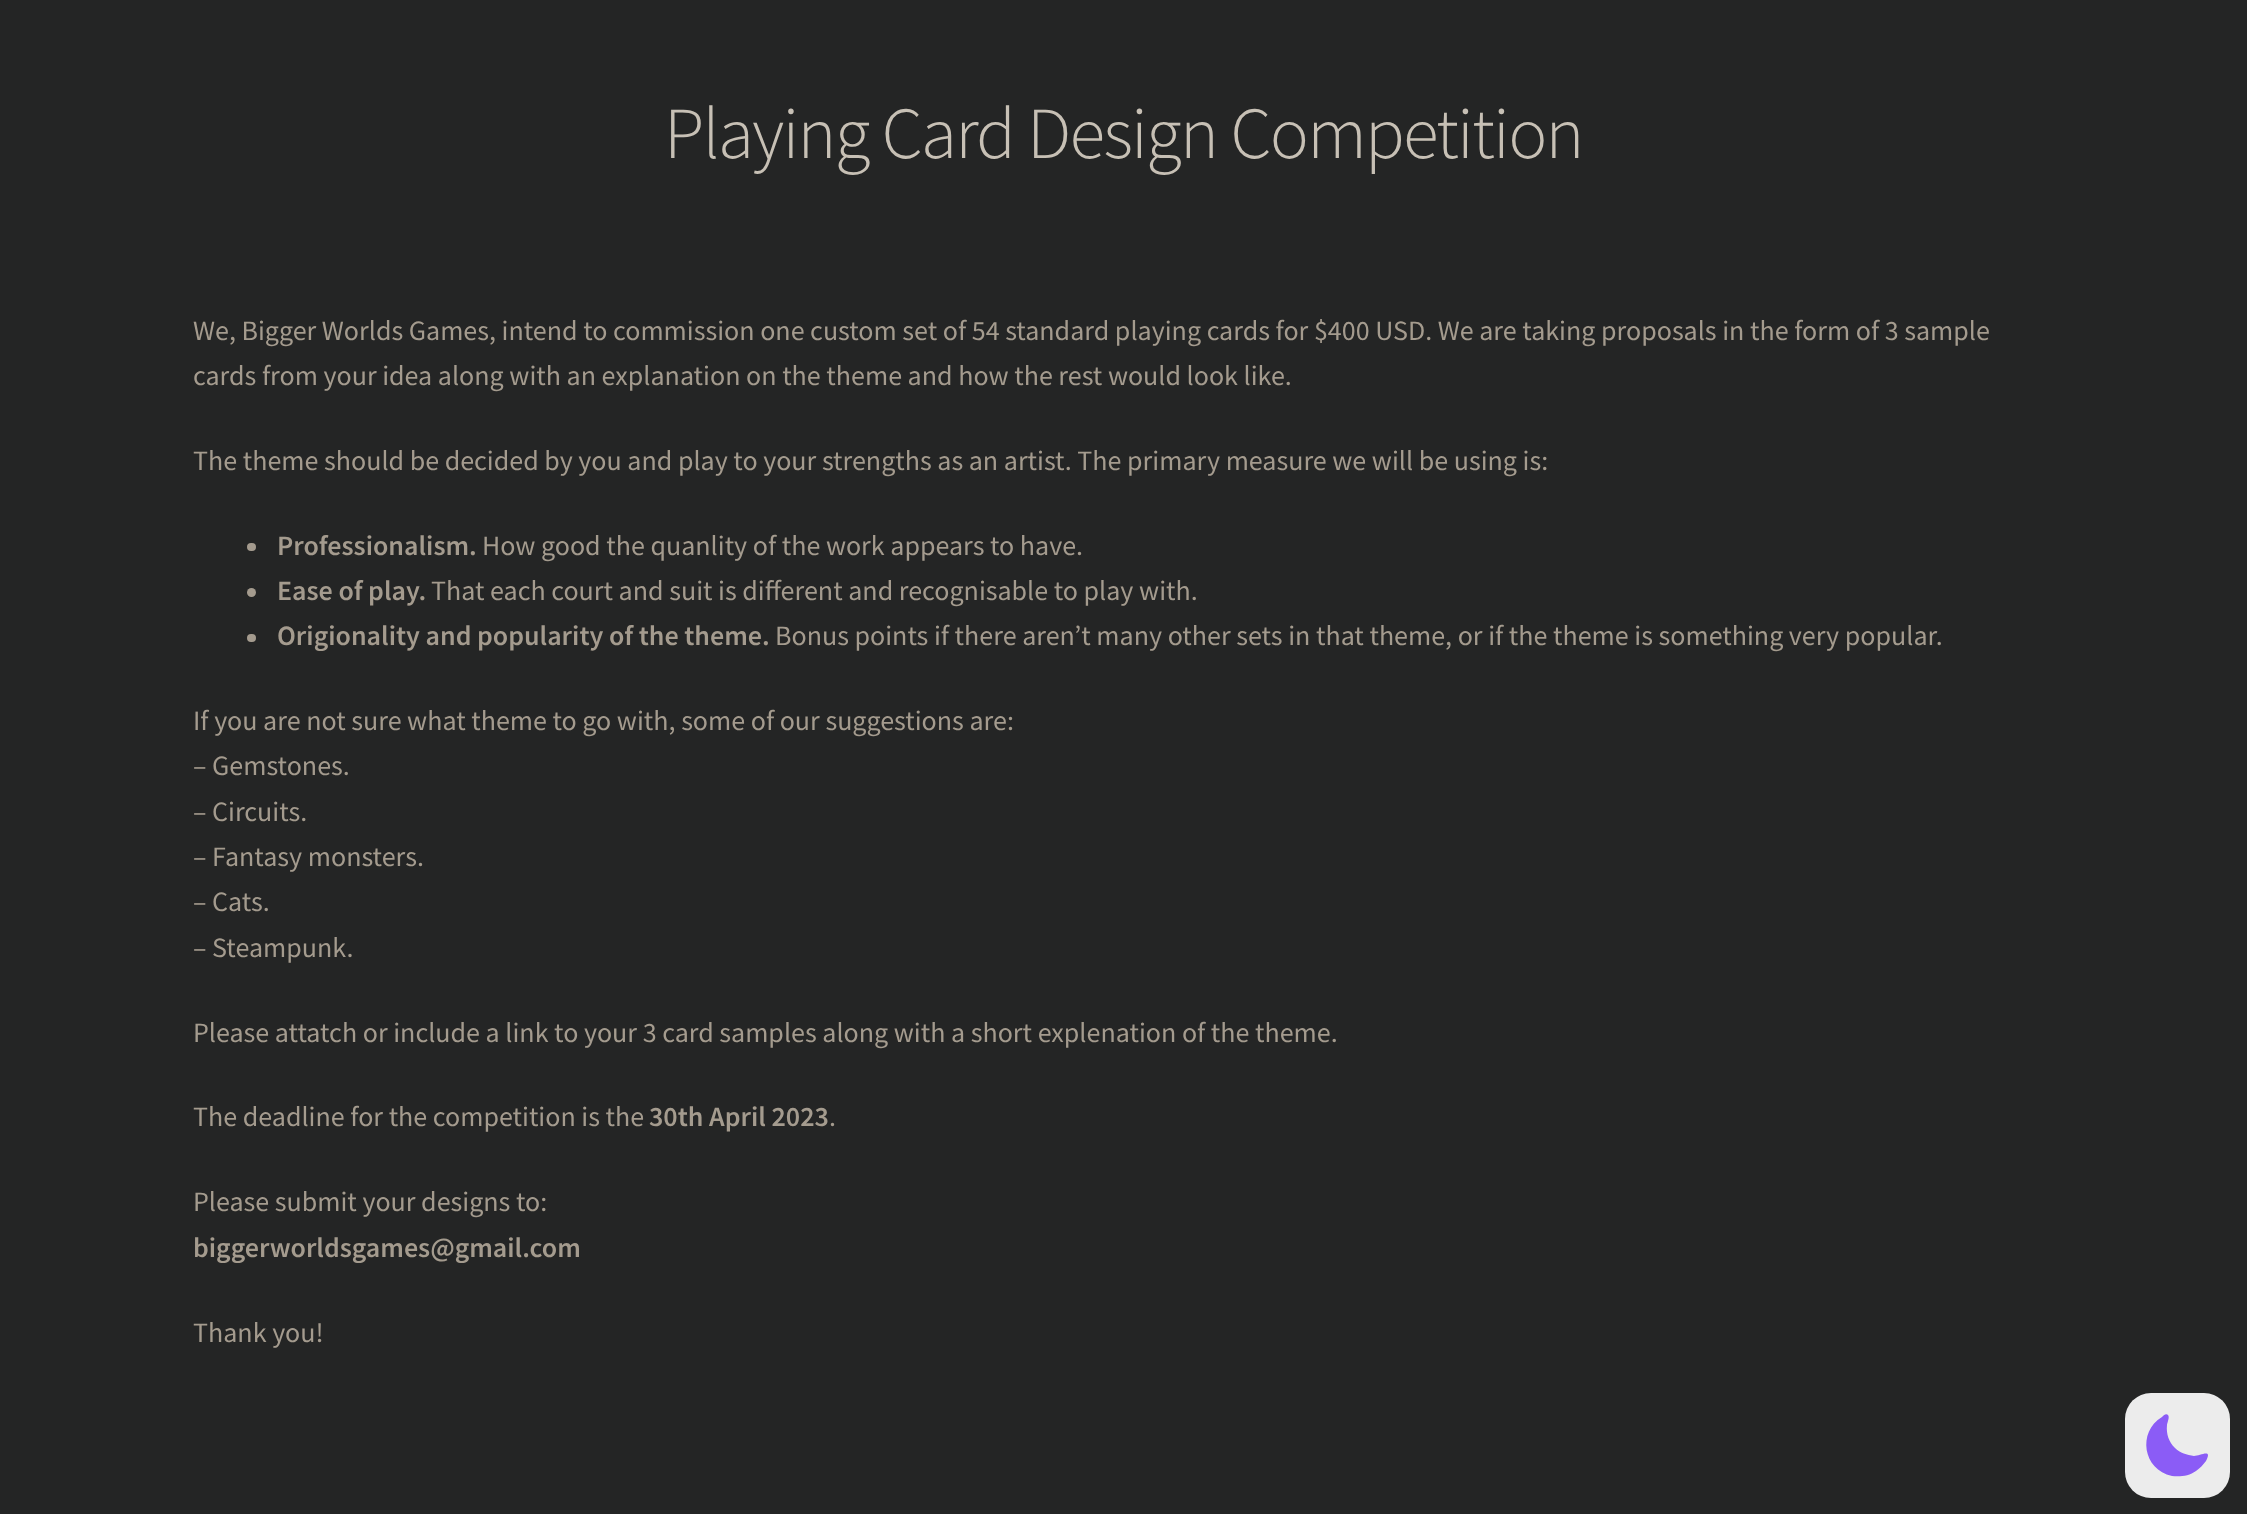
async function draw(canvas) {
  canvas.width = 2247
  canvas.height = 1514
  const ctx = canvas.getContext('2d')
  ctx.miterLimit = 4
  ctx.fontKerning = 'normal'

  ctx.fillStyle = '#242525'
  ctx.fillRect(0, 0, 2247, 1514)
  ctx.letterSpacing = '-1.75px'
  ctx.font = '300 73.25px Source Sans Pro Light'
  ctx.fillStyle = '#c7c0b5'
  ctx.fillText('Playing Card Design Competition', 664, 158)
  ctx.letterSpacing = '0px'
  ctx.font = '28px Source Sans Pro'
  ctx.fillStyle = '#a49b8e'
  ctx.fillText('We, Bigger Worlds Games, intend to commission one custom set of 54 standard playing cards for $400 USD. We are taking proposals in the form of 3 sample', 193, 340)
  ctx.fillText('cards from your idea along with an explanation on the theme and how the rest would look like.', 193, 385)
  ctx.fillText('The theme should be decided by you and play to your strengths as an artist. The primary measure we will be using is:', 193, 470)
  ctx.beginPath()
  ctx.roundRect(247, 543, 9, 8, 4)
  ctx.fill()
  ctx.font = '600 28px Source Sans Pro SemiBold'
  ctx.fillText('Professionalism.', 277, 555)
  ctx.font = '28px Source Sans Pro'
  ctx.fillText('How good the quanlity of the work appears to have.', 482, 555)
  ctx.beginPath()
  ctx.arc(251.5, 592.5, 4.5, 0, 2 * Math.PI)
  ctx.fill()
  ctx.font = '600 28px Source Sans Pro SemiBold'
  ctx.fillText('Ease of play.', 277, 600)
  ctx.font = '28px Source Sans Pro'
  ctx.fillText('That each court and suit is different and recognisable to play with.', 431, 600)
  ctx.beginPath()
  ctx.roundRect(247, 634, 9, 8, 4)
  ctx.fill()
  ctx.font = '600 28px Source Sans Pro SemiBold'
  ctx.fillText('Origionality and popularity of the theme.', 277, 645)
  ctx.font = '28px Source Sans Pro'
  ctx.fillText('Bonus points if there aren’t many other sets in that theme, or if the theme is something very popular.', 775, 645)
  ctx.fillText('If you are not sure what theme to go with, some of our suggestions are:', 193, 730)
  ctx.fillText('– Gemstones.', 193, 775)
  ctx.fillText('– Circuits.', 193, 821)
  ctx.fillText('– Fantasy monsters.', 193, 866)
  ctx.fillText('– Cats.', 193, 911)
  ctx.fillText('– Steampunk.', 193, 957)
  ctx.fillText('Please attatch or include a link to your 3 card samples along with a short explenation of the theme.', 193, 1042)
  ctx.fillText('The deadline for the competition is the', 193, 1126)
  ctx.font = '600 28px Source Sans Pro SemiBold'
  ctx.fillText('30th April 2023', 649, 1126)
  ctx.font = '28px Source Sans Pro'
  ctx.fillText('.', 829, 1126)
  ctx.fillText('Please submit your designs to:', 193, 1211)
  ctx.font = '600 28px Source Sans Pro SemiBold'
  ctx.fillText('biggerworldsgames@gmail.com', 193, 1257)
  ctx.font = '28px Source Sans Pro'
  ctx.fillText('Thank you!', 193, 1342)
  ctx.fillStyle = '#ececec'
  ctx.beginPath()
  ctx.roundRect(2125, 1393, 105, 105, 26)
  ctx.fill()
  ctx.fillStyle = '#8b5cf6'
  ctx.beginPath()
  ctx.moveTo(2168, 1415)
  ctx.bezierCurveTo(2170, 1417, 2167, 1423, 2167, 1425)
  ctx.bezierCurveTo(2166, 1434, 2169, 1442, 2175, 1448)
  ctx.bezierCurveTo(2180, 1453, 2187, 1455, 2194, 1456)
  ctx.bezierCurveTo(2200, 1456, 2213, 1448, 2206, 1461)
  ctx.bezierCurveTo(2203, 1465, 2200, 1468, 2196, 1471)
  ctx.bezierCurveTo(2189, 1476, 2180, 1477, 2172, 1476)
  ctx.bezierCurveTo(2143, 1470, 2137, 1432, 2162, 1417)
  ctx.bezierCurveTo(2163, 1416, 2166, 1413, 2168, 1415)
  ctx.closePath()
  ctx.fill('evenodd')
}

draw(document.querySelector('canvas'))
